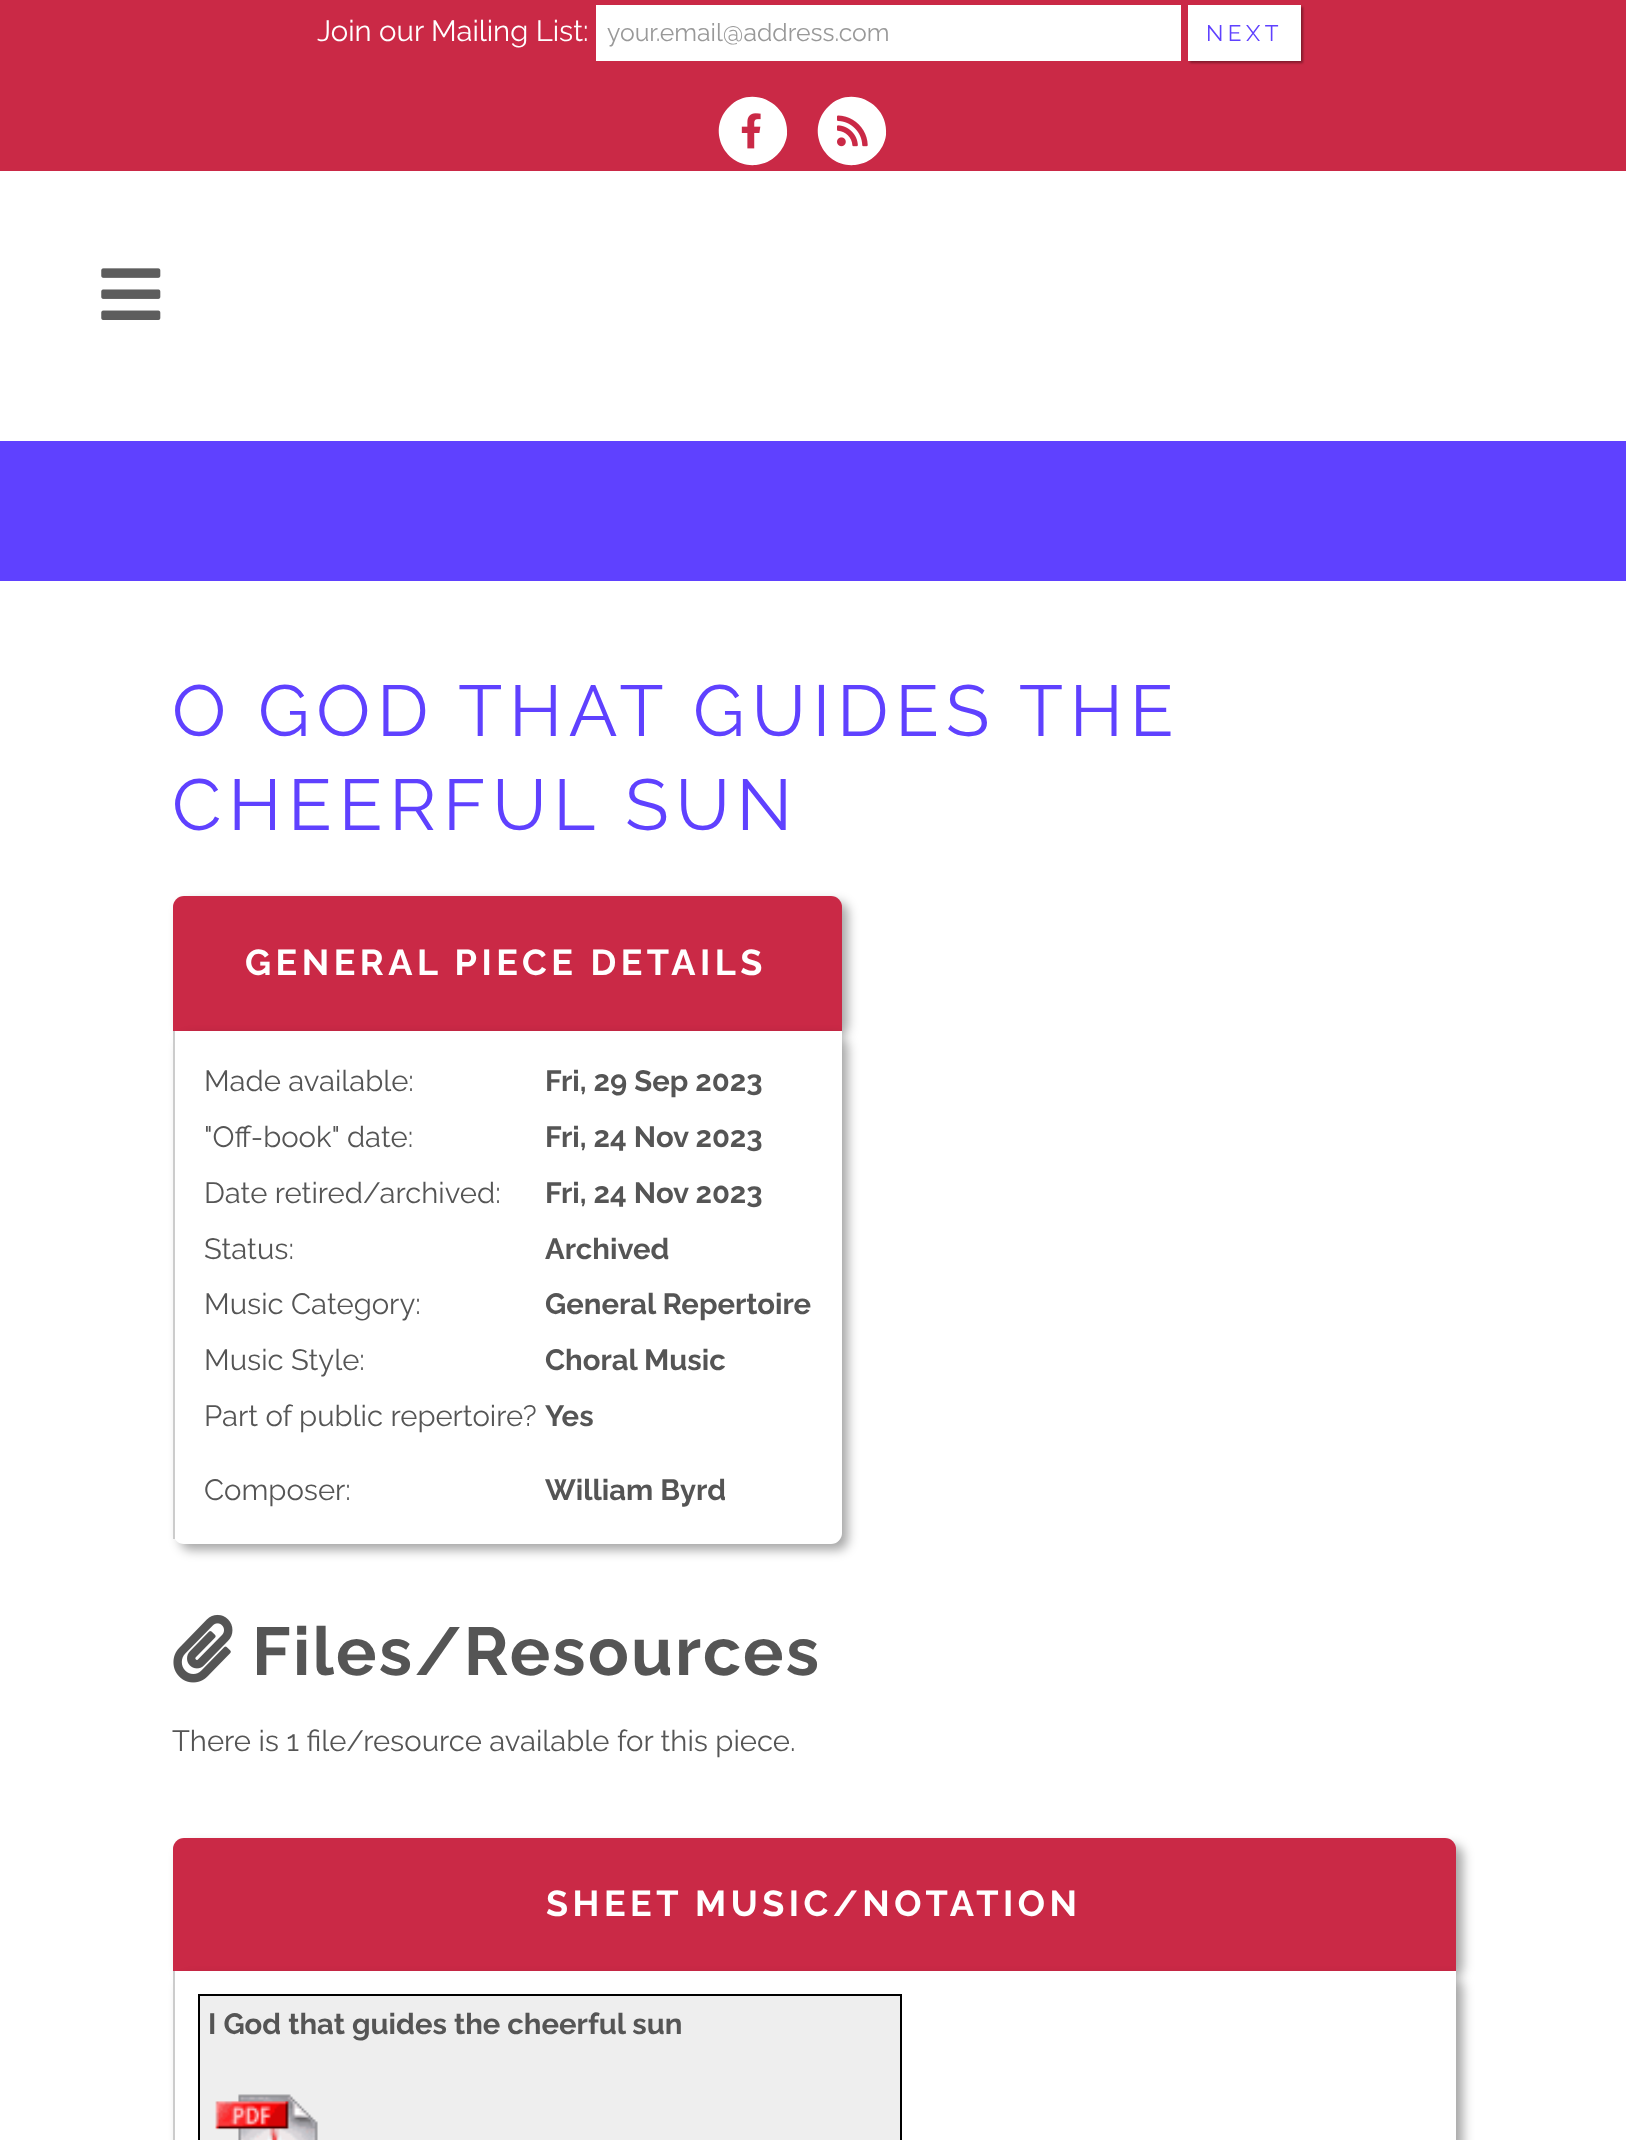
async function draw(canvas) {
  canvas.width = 1626
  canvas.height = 2140
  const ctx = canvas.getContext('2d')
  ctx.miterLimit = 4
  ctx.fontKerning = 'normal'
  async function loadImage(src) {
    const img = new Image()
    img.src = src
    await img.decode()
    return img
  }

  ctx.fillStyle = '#fff'
  ctx.fillRect(0, 0, 1626, 2140)
  ctx.fillStyle = '#ca2946'
  ctx.fillRect(0, 0, 1626, 171)
  ctx.font = '29.25px Raleway'
  ctx.fillStyle = '#fff'
  ctx.fillText('Join our Mailing List:', 317, 41)
  ctx.fillRect(596, 5, 585, 56)
  ctx.font = '24.75px Raleway'
  ctx.fillStyle = '#999'
  ctx.fillText('your.email@address.com', 607, 41)
  ctx.fillStyle = '#00000059'
  ctx.filter = 'blur(1px)'
  ctx.beginPath()
  ctx.rect(1190, 7, 113, 56)
  ctx.fill()
  ctx.filter = 'none'
  ctx.fillStyle = '#fff'
  ctx.fillRect(1188, 5, 113, 56)
  ctx.letterSpacing = '4.5px'
  ctx.font = '22.5px Raleway'
  ctx.fillStyle = '#5f41ff'
  ctx.fillText('NEXT', 1206, 41)
  ctx.fillStyle = '#fff'
  ctx.beginPath()
  ctx.moveTo(729, 107)
  ctx.bezierCurveTo(751, 84, 790, 103, 787, 135)
  ctx.bezierCurveTo(786, 143, 782, 150, 777, 155)
  ctx.bezierCurveTo(771, 161, 764, 164, 756, 165)
  ctx.bezierCurveTo(725, 168, 706, 130, 729, 107)
  ctx.closePath()
  ctx.fill()
  ctx.drawImage(await loadImage('image0.png'), 741, 113, 20, 36)
  ctx.beginPath()
  ctx.moveTo(828, 107)
  ctx.bezierCurveTo(850, 84, 889, 103, 886, 135)
  ctx.bezierCurveTo(885, 143, 881, 150, 876, 155)
  ctx.bezierCurveTo(870, 161, 863, 164, 855, 165)
  ctx.bezierCurveTo(824, 168, 805, 130, 828, 107)
  ctx.closePath()
  ctx.fill()
  ctx.drawImage(await loadImage('image1.png'), 837, 115, 31, 32)
  ctx.drawImage(await loadImage('image2.png'), 101, 268, 60, 52)
  ctx.fillStyle = '#5f41ff'
  ctx.fillRect(0, 441, 1626, 140)
  ctx.letterSpacing = '6.75px'
  ctx.font = '72px Raleway'
  ctx.fillText('O GOD THAT GUIDES THE', 172, 736)
  ctx.fillText('CHEERFUL SUN', 172, 830)
  ctx.fillStyle = '#00000059'
  ctx.filter = 'blur(5.5px)'
  ctx.beginPath()
  ctx.roundRect(180, 902, 668, 135, 11)
  ctx.fill()
  ctx.filter = 'none'
  ctx.fillStyle = '#ca2946'
  ctx.beginPath()
  ctx.roundRect(173, 896, 669, 135, [11, 11, 0, 0])
  ctx.fill()
  ctx.letterSpacing = '4.5px'
  ctx.font = 'bold 36px Raleway'
  ctx.fillStyle = '#fff'
  ctx.fillText('GENERAL PIECE DETAILS', 245, 975)
  ctx.fillStyle = '#00000059'
  ctx.filter = 'blur(5.5px)'
  ctx.beginPath()
  ctx.roundRect(180, 1037, 668, 513, 11)
  ctx.fill()
  ctx.filter = 'none'
  ctx.fillStyle = '#fff'
  ctx.beginPath()
  ctx.roundRect(173, 1031, 669, 513, [0, 0, 11, 11])
  ctx.fill()
  ctx.fillStyle = '#ccc'
  ctx.fillRect(173, 1031, 2, 508)
  ctx.letterSpacing = '0px'
  ctx.font = '29.25px Raleway'
  ctx.fillStyle = '#555'
  ctx.fillText('Made available:', 204, 1091)
  ctx.font = 'bold 29.25px Raleway'
  ctx.fillText('Fri, 29 Sep 2023', 545, 1091)
  ctx.font = '29.25px Raleway'
  ctx.fillText('"Off-book" date:', 204, 1147)
  ctx.font = 'bold 29.25px Raleway'
  ctx.fillText('Fri, 24 Nov 2023', 545, 1147)
  ctx.font = '29.25px Raleway'
  ctx.fillText('Date retired/archived:', 204, 1203)
  ctx.font = 'bold 29.25px Raleway'
  ctx.fillText('Fri, 24 Nov 2023', 545, 1203)
  ctx.font = '29.25px Raleway'
  ctx.fillText('Status:', 204, 1259)
  ctx.font = 'bold 29.25px Raleway'
  ctx.fillText('Archived', 545, 1259)
  ctx.font = '29.25px Raleway'
  ctx.fillText('Music Category:', 204, 1314)
  ctx.font = 'bold 29.25px Raleway'
  ctx.fillText('General Repertoire', 545, 1314)
  ctx.font = '29.25px Raleway'
  ctx.fillText('Music Style:', 204, 1370)
  ctx.font = 'bold 29.25px Raleway'
  ctx.fillText('Choral Music', 545, 1370)
  ctx.font = '29.25px Raleway'
  ctx.fillText('Part of public repertoire?', 204, 1426)
  ctx.font = 'bold 29.25px Raleway'
  ctx.fillText('Yes', 545, 1426)
  ctx.font = '29.25px Raleway'
  ctx.fillText('Composer:', 204, 1500)
  ctx.font = 'bold 29.25px Raleway'
  ctx.fillText('William Byrd', 545, 1500)
  ctx.drawImage(await loadImage('image3.png'), 173, 1614, 60, 69)
  ctx.letterSpacing = '2.25px'
  ctx.font = 'bold 67.5px Raleway'
  ctx.fillText('Files/Resources', 252, 1675)
  ctx.letterSpacing = '0px'
  ctx.font = '29.25px Raleway'
  ctx.fillText('There is 1 file/resource available for this piece.', 172, 1751)
  ctx.fillStyle = '#00000059'
  ctx.filter = 'blur(5.5px)'
  ctx.beginPath()
  ctx.roundRect(180, 1845, 1283, 133, 11)
  ctx.fill()
  ctx.filter = 'none'
  ctx.fillStyle = '#ca2946'
  ctx.beginPath()
  ctx.roundRect(173, 1838, 1283, 133, [11, 11, 0, 0])
  ctx.fill()
  ctx.letterSpacing = '4.5px'
  ctx.font = 'bold 36px Raleway'
  ctx.fillStyle = '#fff'
  ctx.fillText('SHEET MUSIC/NOTATION', 546, 1916)
  ctx.fillStyle = '#00000059'
  ctx.filter = 'blur(5.5px)'
  ctx.beginPath()
  ctx.roundRect(180, 1978, 1283, 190, 11)
  ctx.fill()
  ctx.filter = 'none'
  ctx.fillStyle = '#fff'
  ctx.fillRect(175, 1971, 1281, 169)
  ctx.fillStyle = '#ccc'
  ctx.fillRect(173, 1971, 2, 169)
  ctx.fillStyle = '#eee'
  ctx.beginPath()
  ctx.rect(199, 1995, 702, 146)
  ctx.fill()
  ctx.strokeStyle = '#000'
  ctx.lineWidth = 2
  ctx.stroke()
  ctx.letterSpacing = '0px'
  ctx.font = 'bold 29.25px Raleway'
  ctx.fillStyle = '#555'
  ctx.fillText('I God that guides the cheerful sun', 208, 2034)
  ctx.drawImage(await loadImage('image4.png'), 215, 2094, 103, 46)
}

draw(document.querySelector('canvas'))
